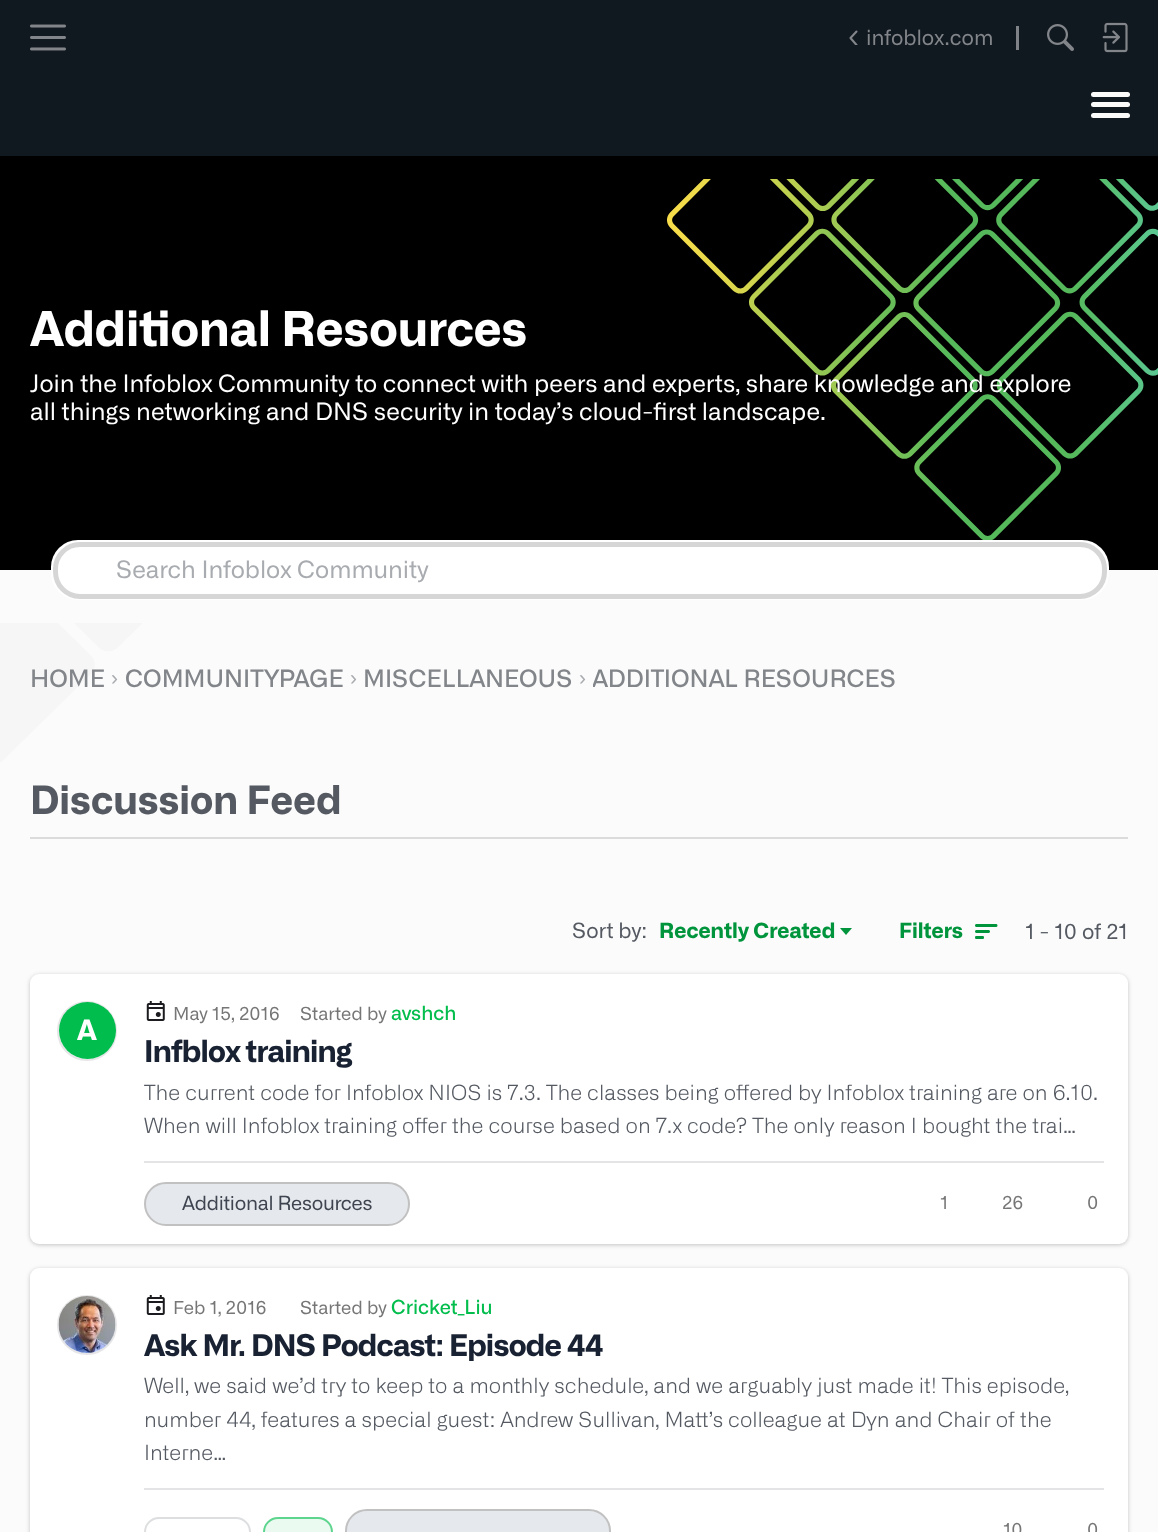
async function draw(canvas) {
  canvas.width = 1158
  canvas.height = 1532
  const ctx = canvas.getContext('2d')
  ctx.miterLimit = 4
  ctx.fontKerning = 'normal'
  async function loadImage(src) {
    const img = new Image()
    img.src = src
    await img.decode()
    return img
  }

  ctx.fillStyle = '#fbfbfb'
  ctx.fillRect(0, 0, 1158, 1532)
  ctx.fillStyle = '#101820'
  ctx.fillRect(0, 0, 1158, 156)
  ctx.fillStyle = '#fafafa'
  ctx.beginPath()
  ctx.roundRect(1091, 102, 39, 5, 2.5)
  ctx.fill()
  ctx.beginPath()
  ctx.roundRect(1091, 92, 39, 5, 2.5)
  ctx.fill()
  ctx.beginPath()
  ctx.roundRect(1091, 113, 39, 5, 2.5)
  ctx.fill()
  ctx.drawImage(await loadImage('image0.png'), 30, 24, 36, 27)
  ctx.save()
  ctx.beginPath()
  ctx.rect(849, 30, 9, 15)
  ctx.clip()
  ctx.beginPath()
  ctx.moveTo(856.5, 45)
  ctx.lineTo(850.5, 38)
  ctx.lineTo(856.5, 31.5)
  ctx.strokeStyle = '#828589'
  ctx.lineWidth = 2.1
  ctx.lineCap = 'round'
  ctx.lineJoin = 'round'
  ctx.stroke()
  ctx.restore()
  ctx.font = '21px "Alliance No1"'
  ctx.fillStyle = '#828589'
  ctx.fillText('infoblox.com', 866, 45)
  ctx.fillStyle = '#7f8387'
  ctx.fillRect(1016, 26, 3, 24)
  ctx.drawImage(await loadImage('image1.png'), 1047, 24, 27, 27)
  ctx.drawImage(await loadImage('image2.png'), 1102, 22, 26, 31)
  ctx.drawImage(await loadImage('image3.png'), 0, 623, 142, 139)
  ctx.fillStyle = '#000'
  ctx.fillRect(0, 156, 1158, 414)
  ctx.drawImage(await loadImage('image4.png'), 667, 179, 491, 361)
  ctx.font = 'bold 48px "Alliance No1"'
  ctx.fillStyle = '#fff'
  ctx.fillText('Additional Resources', 30, 346)
  ctx.font = '24px "Alliance No1"'
  ctx.fillText('Join the Infoblox Community to connect with peers and experts, share knowledge and explore', 30, 392)
  ctx.fillText('all things networking and DNS security in today’s cloud-first landscape.', 30, 420)
  ctx.beginPath()
  ctx.roundRect(51, 540, 1058, 60, 27)
  ctx.fill()
  ctx.beginPath()
  ctx.roundRect(55.5, 544.5, 1049, 52, 24.5)
  ctx.strokeStyle = '#d6d6d6'
  ctx.lineWidth = 5
  ctx.stroke()
  ctx.fillStyle = '#a8abaf'
  ctx.fillText('Search Infoblox Community', 116, 578)
  ctx.font = '500 24px "Alliance No1"'
  ctx.fillStyle = '#828589'
  ctx.fillText('HOME', 30, 687)
  ctx.font = '21px Liberation Sans'
  ctx.fillStyle = '#a8abaf'
  ctx.fillText('›', 111, 685)
  ctx.font = '500 24px "Alliance No1"'
  ctx.fillStyle = '#828589'
  ctx.fillText('COMMUNITYPAGE', 125, 687)
  ctx.font = '21px Liberation Sans'
  ctx.fillStyle = '#a8abaf'
  ctx.fillText('›', 350, 685)
  ctx.font = '500 24px "Alliance No1"'
  ctx.fillStyle = '#828589'
  ctx.fillText('MISCELLANEOUS', 363, 687)
  ctx.font = '21px Liberation Sans'
  ctx.fillStyle = '#a8abaf'
  ctx.fillText('›', 579, 685)
  ctx.save()
  ctx.beginPath()
  ctx.rect(593, 663, 303, 30)
  ctx.clip()
  ctx.font = '500 24px "Alliance No1"'
  ctx.fillStyle = '#828589'
  ctx.fillText('ADDITIONAL RESOURCES', 592, 687)
  ctx.restore()
  ctx.fillStyle = '#dbdbdb'
  ctx.fillRect(30, 837, 1098, 2)
  ctx.font = 'bold 39px "Alliance No1"'
  ctx.fillStyle = '#555a62'
  ctx.fillText('Discussion Feed', 30, 814)
  ctx.font = '21px "Alliance No1"'
  ctx.fillText('Sort by:', 572, 938)
  ctx.font = 'bold 21px "Alliance No1"'
  ctx.fillStyle = '#00953d'
  ctx.fillText('Recently Created', 659, 938)
  ctx.beginPath()
  ctx.moveTo(840, 928)
  ctx.lineTo(852, 928)
  ctx.lineTo(846, 935)
  ctx.closePath()
  ctx.fill()
  ctx.fillText('Filters', 899, 938)
  ctx.drawImage(await loadImage('image5.png'), 975, 924, 23, 15)
  ctx.font = '21px "Alliance No1"'
  ctx.fillStyle = '#555a62'
  ctx.fillText('1 - 10 of 21', 1025, 939)
  ctx.fillStyle = '#00000038'
  ctx.filter = 'blur(2px)'
  ctx.beginPath()
  ctx.roundRect(30, 975, 1098, 270, 9)
  ctx.fill()
  ctx.filter = 'none'
  ctx.fillStyle = '#fff'
  ctx.beginPath()
  ctx.roundRect(30, 974, 1098, 270, 9)
  ctx.fill()
  ctx.beginPath()
  ctx.arc(87, 1031, 29, 0, 2 * Math.PI)
  ctx.strokeStyle = '#e6e6e8'
  ctx.lineWidth = 2
  ctx.stroke()
  ctx.fillStyle = '#00bd4d'
  ctx.beginPath()
  ctx.arc(87.5, 1030.5, 28.5, 0, 2 * Math.PI)
  ctx.fill()
  ctx.font = 'bold 28px "Alliance No1"'
  ctx.fillStyle = '#fff'
  ctx.fillText('A', 77, 1040)
  ctx.drawImage(await loadImage('image6.png'), 146, 1001, 19, 20)
  ctx.font = '18px "Alliance No1"'
  ctx.fillStyle = '#767676'
  ctx.fillText('May 15, 2016', 173, 1020)
  ctx.fillText('Started by', 300, 1020)
  ctx.font = '500 19.5px "Alliance No1"'
  ctx.fillStyle = '#03bd4d'
  ctx.fillText('avshch', 391, 1020)
  ctx.fillStyle = '#e5e8ec'
  ctx.beginPath()
  ctx.roundRect(145, 1183, 264, 42, 21)
  ctx.fill()
  ctx.strokeStyle = '#c1c1c1'
  ctx.stroke()
  ctx.letterSpacing = '-0.25px'
  ctx.font = '19.5px "Alliance No1"'
  ctx.fillStyle = '#3f4550'
  ctx.fillText('Additional Resources', 182, 1210)
  ctx.letterSpacing = '0px'
  ctx.font = '18px "Alliance No1"'
  ctx.fillStyle = '#767676'
  ctx.fillText('1', 940, 1209)
  ctx.fillText('26', 1002, 1209)
  ctx.fillText('0', 1087, 1209)
  ctx.fillStyle = '#e4e4e7'
  ctx.fillRect(144, 1161, 960, 2)
  ctx.font = '300 21px "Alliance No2"'
  ctx.fillStyle = '#555a62'
  ctx.fillText('The current code for Infoblox NIOS is 7.3. The classes being offered by Infoblox training are on 6.10.', 144, 1100)
  ctx.fillText('When will Infoblox training offer the course based on 7.x code? The only reason I bought the trai…', 144, 1133)
  ctx.letterSpacing = '-0.75px'
  ctx.font = 'bold 30px "Alliance No1"'
  ctx.fillStyle = '#192232'
  ctx.fillText('Infblox training', 144, 1062)
  ctx.fillStyle = '#00000038'
  ctx.filter = 'blur(2px)'
  ctx.beginPath()
  ctx.roundRect(30, 1269, 1098, 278, 9)
  ctx.fill()
  ctx.filter = 'none'
  ctx.fillStyle = '#fff'
  ctx.beginPath()
  ctx.roundRect(30, 1268, 1098, 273, 9)
  ctx.fill()
  ctx.beginPath()
  ctx.arc(87, 1325, 29, 0, 2 * Math.PI)
  ctx.strokeStyle = '#e6e6e8'
  ctx.stroke()
  ctx.drawImage(await loadImage('image7.png'), 58, 1296, 58, 57)
  ctx.drawImage(await loadImage('image6.png'), 146, 1295, 19, 20)
  ctx.letterSpacing = '0px'
  ctx.font = '18px "Alliance No1"'
  ctx.fillStyle = '#767676'
  ctx.fillText('Feb 1, 2016', 173, 1314)
  ctx.fillText('Started by', 300, 1314)
  ctx.font = '500 19.5px "Alliance No1"'
  ctx.fillStyle = '#03bd4d'
  ctx.fillText('Cricket_Liu', 391, 1314)
  ctx.beginPath()
  ctx.roundRect(145, 1518, 105, 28, 14)
  ctx.strokeStyle = '#dddee0'
  ctx.stroke()
  ctx.fillStyle = '#ebfaf1'
  ctx.beginPath()
  ctx.roundRect(263, 1517, 70, 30, 15)
  ctx.fill()
  ctx.beginPath()
  ctx.roundRect(264, 1518, 68, 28, 14)
  ctx.strokeStyle = '#00bd4d99'
  ctx.stroke()
  ctx.fillStyle = '#e5e8ec'
  ctx.beginPath()
  ctx.roundRect(346, 1510, 264, 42, 21)
  ctx.fill()
  ctx.strokeStyle = '#c1c1c1'
  ctx.stroke()
  ctx.font = '18px "Alliance No1"'
  ctx.fillStyle = '#767676'
  ctx.fillText('10', 1003, 1536)
  ctx.fillText('0', 1087, 1536)
  ctx.fillStyle = '#e4e4e7'
  ctx.fillRect(144, 1488, 960, 2)
  ctx.font = '300 21px "Alliance No2"'
  ctx.fillStyle = '#555a62'
  ctx.fillText('Well, we said we’d try to keep to a monthly schedule, and we arguably just made it! This episode,', 144, 1393)
  ctx.fillText('number 44, features a special guest: Andrew Sullivan, Matt’s colleague at Dyn and Chair of the', 144, 1427)
  ctx.fillText('Interne…', 144, 1460)
  ctx.letterSpacing = '-0.75px'
  ctx.font = 'bold 30px "Alliance No1"'
  ctx.fillStyle = '#192232'
  ctx.fillText('Ask Mr. DNS Podcast: Episode 44', 144, 1356)
}

draw(document.querySelector('canvas'))
